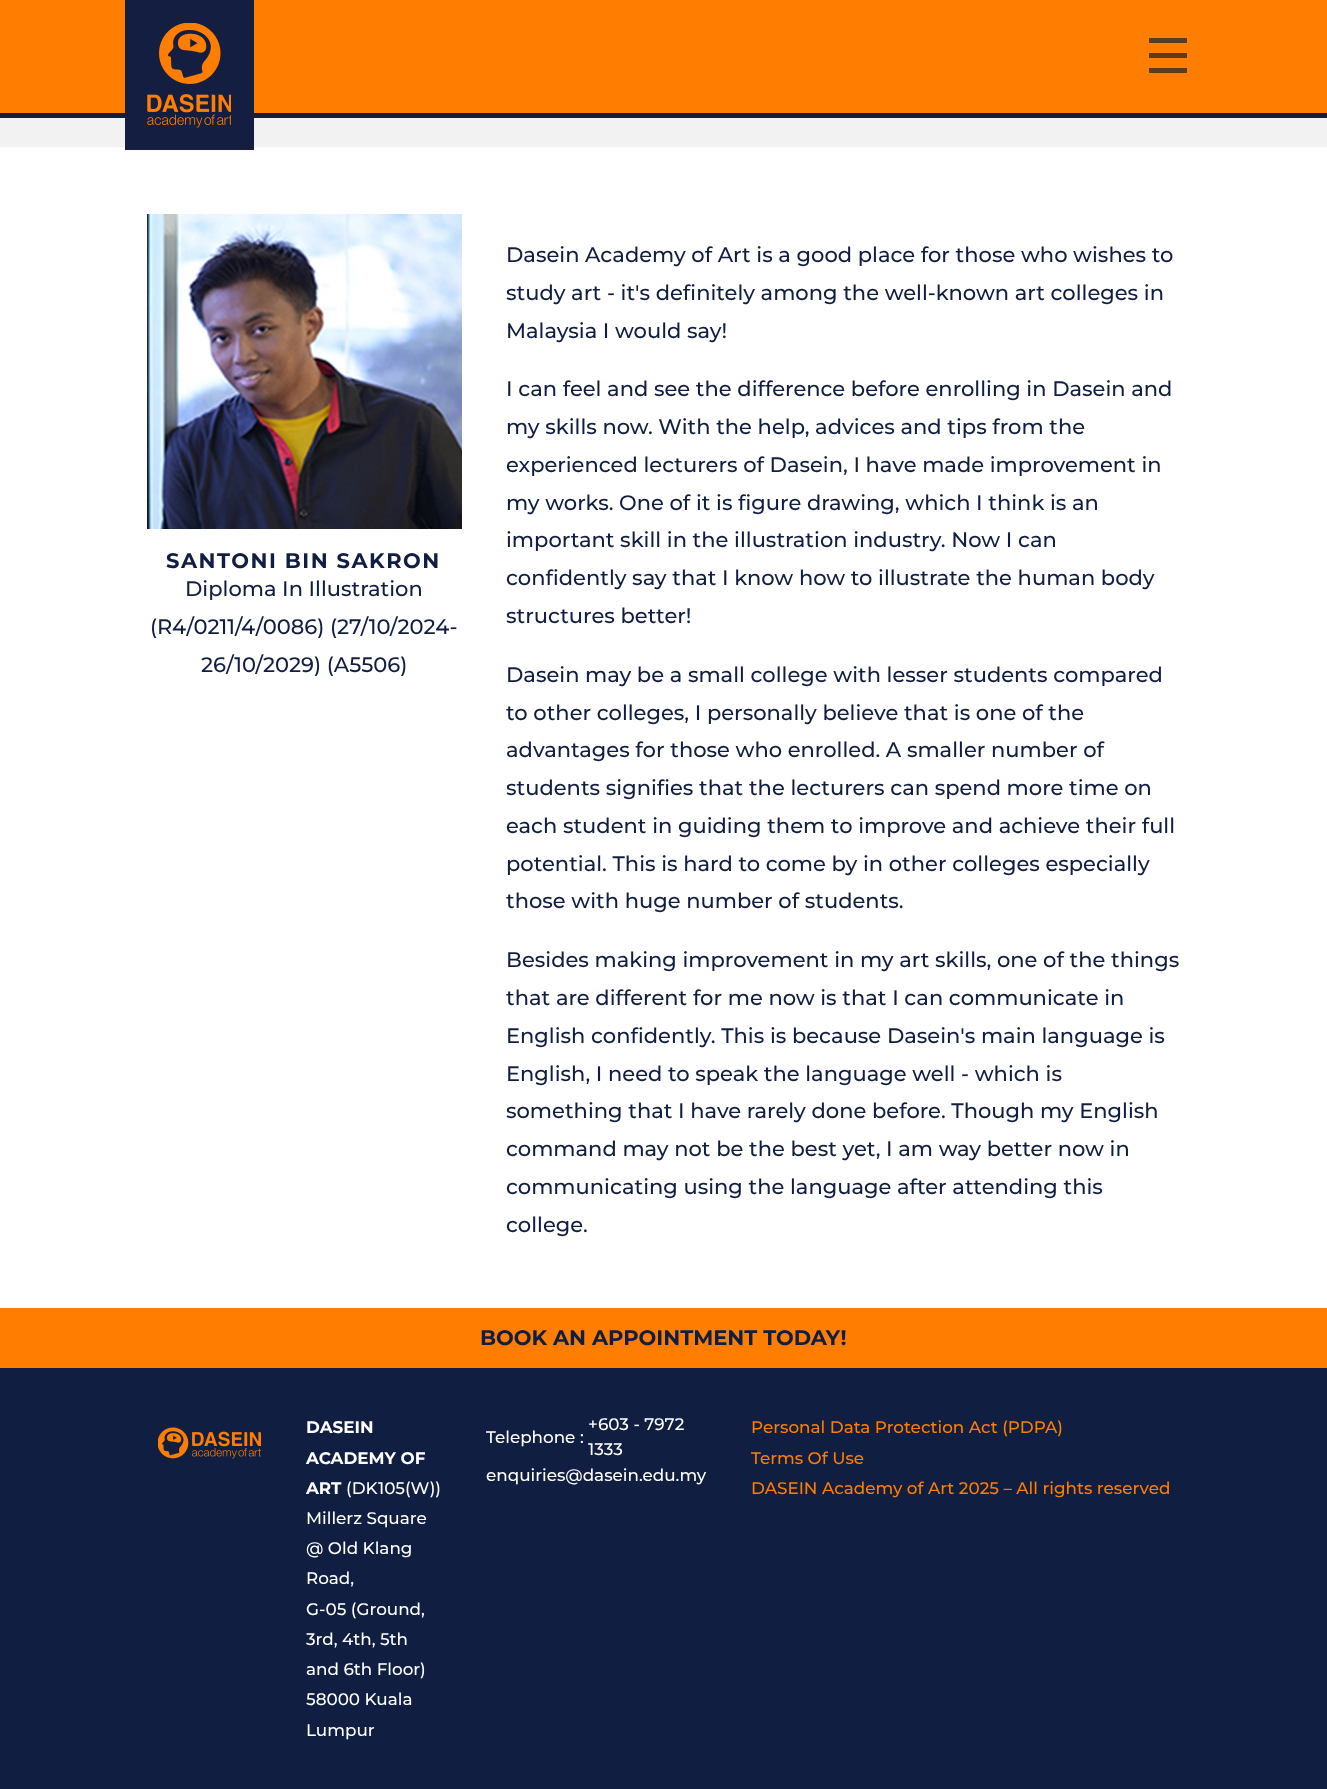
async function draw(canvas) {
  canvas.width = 1327
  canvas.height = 1789
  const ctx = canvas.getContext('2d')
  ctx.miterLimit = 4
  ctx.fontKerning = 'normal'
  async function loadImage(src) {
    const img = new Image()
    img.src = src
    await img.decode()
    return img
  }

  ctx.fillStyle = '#fff'
  ctx.fillRect(0, 0, 1327, 1789)
  ctx.fillStyle = '#ff7d00'
  ctx.fillRect(0, 0, 1327, 113)
  ctx.fillStyle = '#131e41'
  ctx.fillRect(0, 113, 1327, 5)
  ctx.fillStyle = '#f2f2f2'
  ctx.fillRect(0, 118, 1327, 29)
  ctx.fillStyle = '#131e41'
  ctx.fillRect(125, 0, 129, 150)
  ctx.drawImage(await loadImage('image0.png'), 147, 23, 84, 105)
  ctx.fillStyle = '#573c1f'
  ctx.fillRect(1149, 38, 38, 5)
  ctx.fillRect(1149, 53, 38, 5)
  ctx.fillRect(1149, 68, 38, 5)
  ctx.drawImage(await loadImage('image1.png'), 147, 214, 315, 315)
  ctx.letterSpacing = '1.5px'
  ctx.font = '100 21px Montserrat'
  ctx.fillStyle = '#101e41'
  ctx.fillText('SANTONI BIN SAKRON', 166, 568)
  ctx.letterSpacing = '0px'
  ctx.font = '100 21px "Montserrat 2"'
  ctx.fillText('Diploma In Illustration', 185, 596)
  ctx.fillText('(R4/0211/4/0086) (27/10/2024-', 150, 634)
  ctx.fillText('26/10/2029) (A5506)', 201, 672)
  ctx.fillText('Dasein Academy of Art is a good place for those who wishes to', 506, 262)
  ctx.fillText('study art - it\'s definitely among the well-known art colleges in', 506, 300)
  ctx.fillText('Malaysia I would say!', 506, 338)
  ctx.fillText('I can feel and see the difference before enrolling in Dasein and', 506, 396)
  ctx.fillText('my skills now. With the help, advices and tips from the', 506, 434)
  ctx.fillText('experienced lecturers of Dasein, I have made improvement in', 506, 472)
  ctx.fillText('my works. One of it is figure drawing, which I think is an', 506, 510)
  ctx.fillText('important skill in the illustration industry. Now I can', 506, 547)
  ctx.fillText('confidently say that I know how to illustrate the human body', 506, 585)
  ctx.fillText('structures better!', 506, 623)
  ctx.fillText('Dasein may be a small college with lesser students compared', 506, 682)
  ctx.fillText('to other colleges, I personally believe that is one of the', 506, 720)
  ctx.fillText('advantages for those who enrolled. A smaller number of', 506, 757)
  ctx.fillText('students signifies that the lecturers can spend more time on', 506, 795)
  ctx.fillText('each student in guiding them to improve and achieve their full', 506, 833)
  ctx.fillText('potential. This is hard to come by in other colleges especially', 506, 871)
  ctx.fillText('those with huge number of students.', 506, 908)
  ctx.fillText('Besides making improvement in my art skills, one of the things', 506, 967)
  ctx.fillText('that are different for me now is that I can communicate in', 506, 1005)
  ctx.fillText('English confidently. This is because Dasein\'s main language is', 506, 1043)
  ctx.fillText('English, I need to speak the language well - which is', 506, 1081)
  ctx.fillText('something that I have rarely done before. Though my English', 506, 1118)
  ctx.fillText('command may not be the best yet, I am way better now in', 506, 1156)
  ctx.fillText('communicating using the language after attending this', 506, 1194)
  ctx.fillText('college.', 506, 1232)
  ctx.fillStyle = '#ff7d00'
  ctx.fillRect(0, 1308, 1327, 60)
  ctx.font = '100 21px Montserrat'
  ctx.fillStyle = '#101e41'
  ctx.fillText('BOOK AN APPOINTMENT TODAY!', 480, 1345)
  ctx.fillRect(0, 1368, 1327, 421)
  ctx.drawImage(await loadImage('image2.png'), 158, 1427, 103, 32)
  ctx.font = '100 16.8px Montserrat'
  ctx.fillStyle = '#fff'
  ctx.fillText('DASEIN', 306, 1433)
  ctx.fillText('ACADEMY OF', 306, 1464)
  ctx.fillText('ART', 306, 1494)
  ctx.font = '100 16.8px "Montserrat 2"'
  ctx.fillText('(DK105(W))', 346, 1494)
  ctx.fillText('Millerz Square', 306, 1524)
  ctx.fillText('@ Old Klang', 306, 1554)
  ctx.fillText('Road,', 306, 1584)
  ctx.fillText('G-05 (Ground,', 306, 1615)
  ctx.fillText('3rd, 4th, 5th', 306, 1645)
  ctx.fillText('and 6th Floor)', 306, 1675)
  ctx.fillText('58000 Kuala', 306, 1705)
  ctx.fillText('Lumpur', 306, 1736)
  ctx.fillText('Telephone :', 486, 1443)
  ctx.fillText('+603 - 7972', 588, 1430)
  ctx.fillText('1333', 588, 1455)
  ctx.fillText('enquiries@dasein.edu.my', 486, 1481)
  ctx.fillStyle = '#ff7d00'
  ctx.fillText('Personal Data Protection Act (PDPA)', 751, 1433)
  ctx.fillText('Terms Of Use', 751, 1464)
  ctx.fillText('DASEIN Academy of Art 2025 – All rights reserved', 751, 1494)
}

draw(document.querySelector('canvas'))
